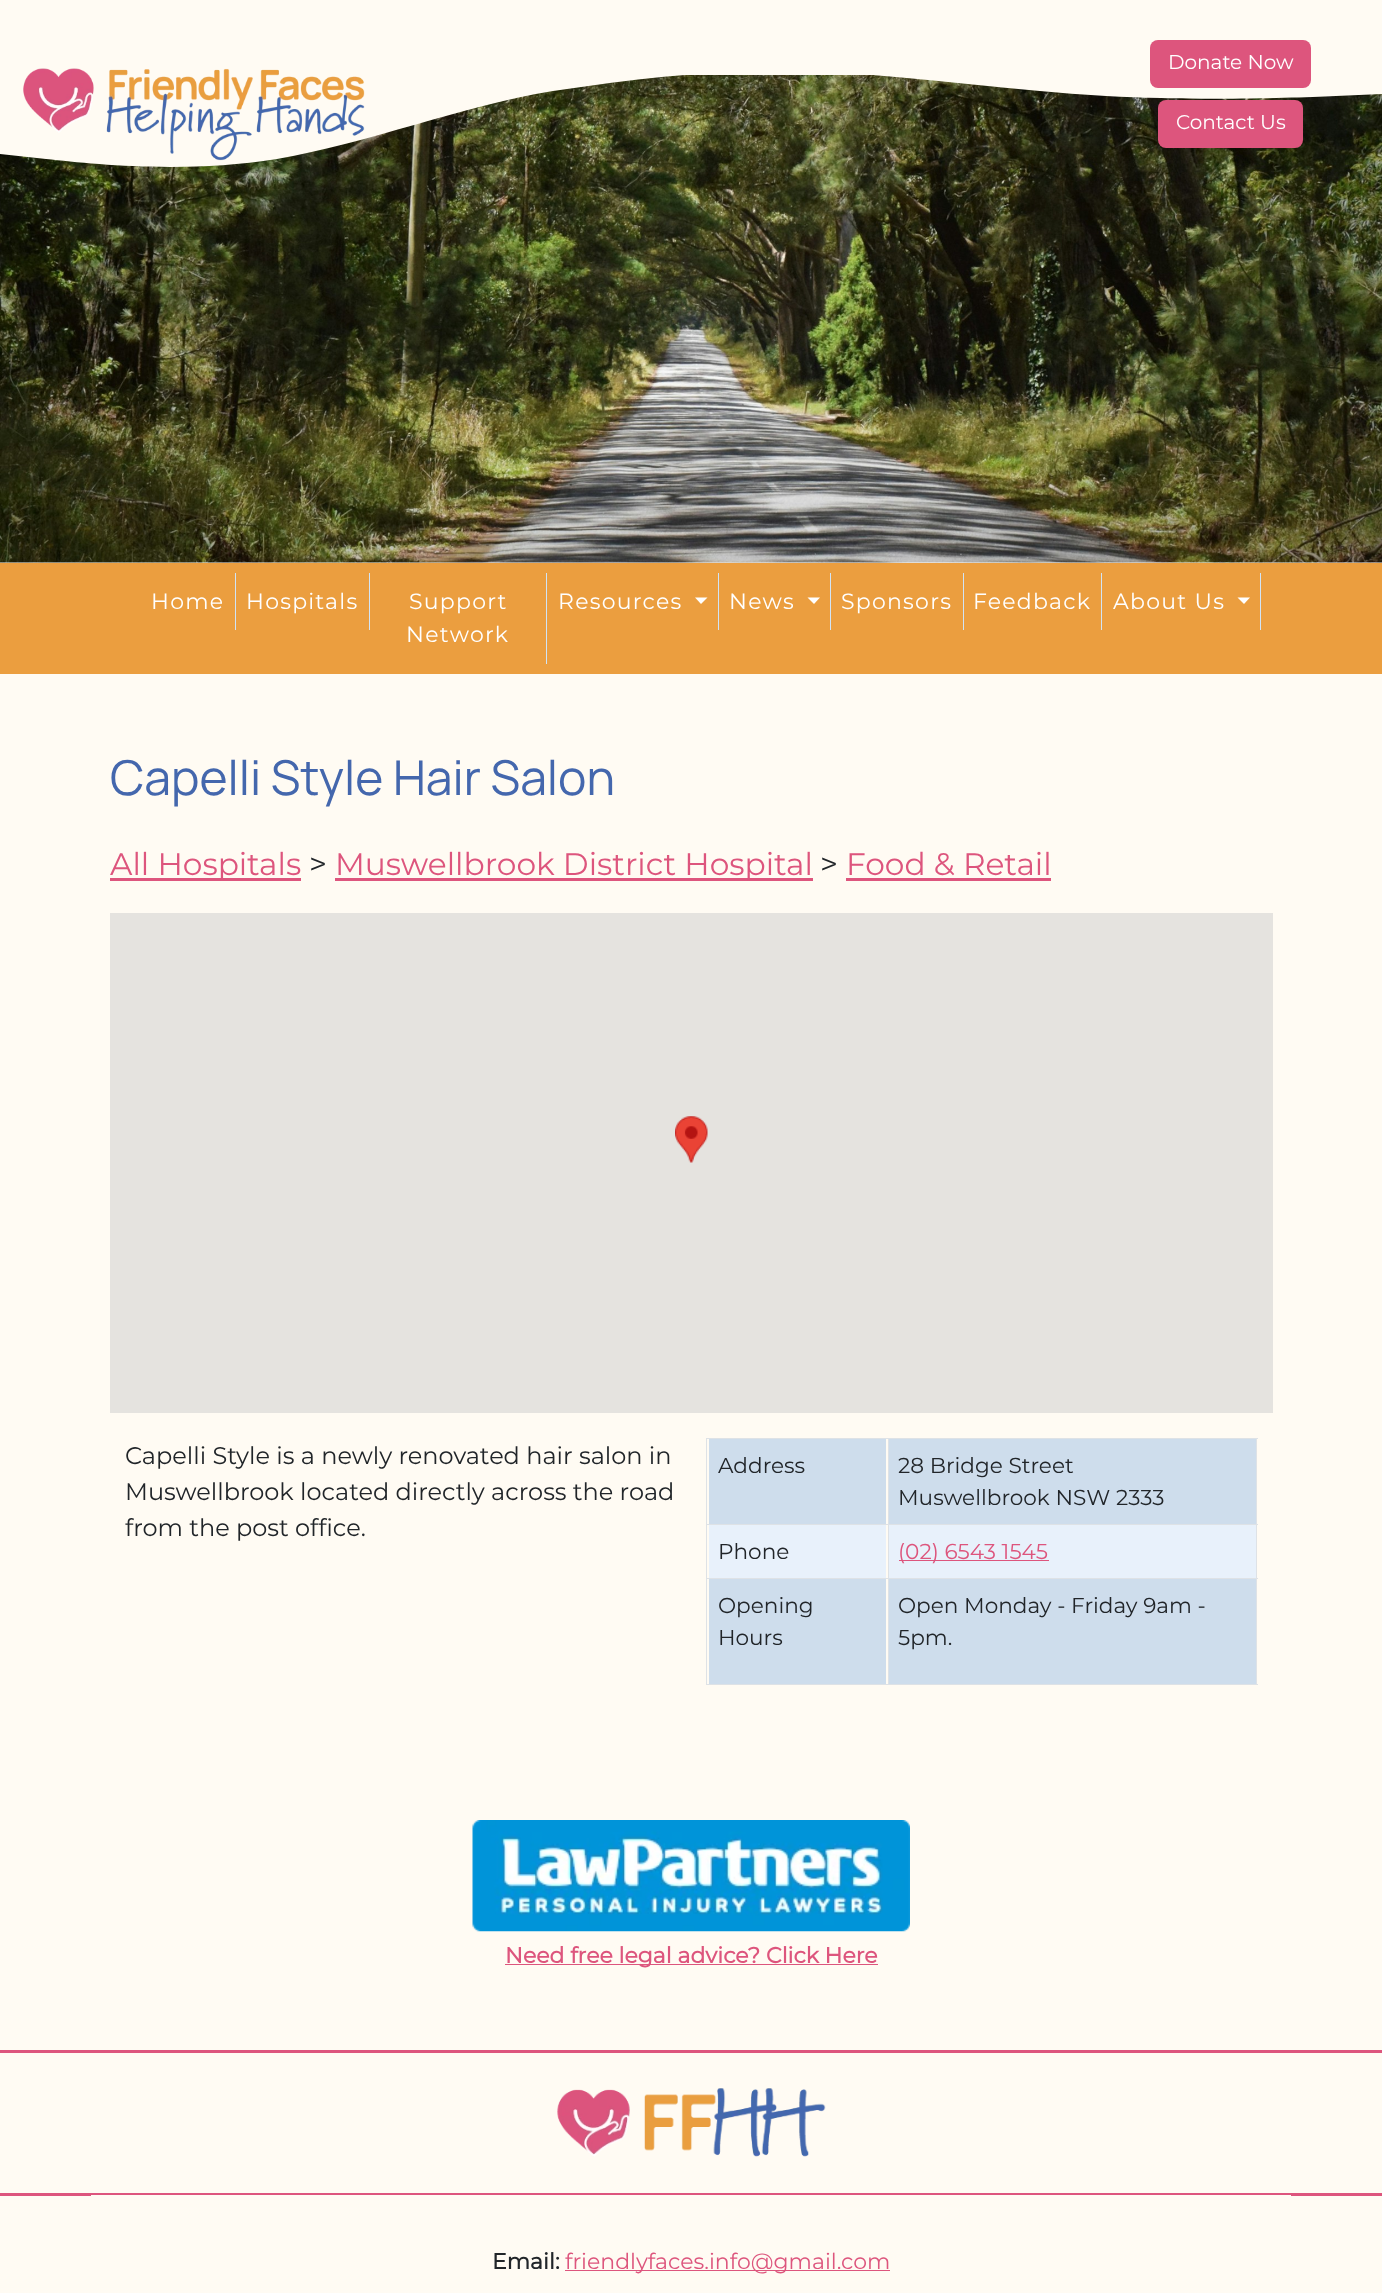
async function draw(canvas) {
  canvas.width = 1382
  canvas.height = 2293
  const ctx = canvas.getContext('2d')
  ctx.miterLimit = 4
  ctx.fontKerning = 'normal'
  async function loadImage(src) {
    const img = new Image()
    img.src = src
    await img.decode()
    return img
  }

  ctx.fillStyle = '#fffbf3'
  ctx.fillRect(0, 0, 1382, 2293)
  ctx.drawImage(await loadImage('image1.png'), 0, 75, 1382, 488)
  ctx.beginPath()
  ctx.moveTo(0, 154)
  ctx.lineTo(46, 159)
  ctx.bezierCurveTo(92, 164, 184, 174, 277, 159)
  ctx.bezierCurveTo(369, 143, 461, 106, 553, 91)
  ctx.bezierCurveTo(645, 77, 737, 67, 829, 72)
  ctx.bezierCurveTo(922, 77, 1014, 91, 1106, 96)
  ctx.bezierCurveTo(1198, 101, 1290, 98, 1336, 96)
  ctx.lineTo(1382, 94)
  ctx.lineTo(1382, 0)
  ctx.lineTo(0, 0)
  ctx.closePath()
  ctx.fill()
  ctx.drawImage(await loadImage('image0.png'), 23, 68, 342, 93)
  ctx.fillStyle = '#dd557d'
  ctx.beginPath()
  ctx.roundRect(1150, 40, 161, 48, 8)
  ctx.fill()
  ctx.font = '100 20px Montserrat'
  ctx.fillStyle = '#fff'
  ctx.fillText('Donate Now', 1168, 69)
  ctx.fillStyle = '#dd557d'
  ctx.beginPath()
  ctx.roundRect(1158, 100, 145, 48, 8)
  ctx.fill()
  ctx.fillStyle = '#fff'
  ctx.fillText('Contact Us', 1176, 129)
  ctx.fillStyle = '#eb9e3f'
  ctx.fillRect(0, 563, 1382, 111)
  ctx.fillStyle = '#d1e4f6'
  ctx.fillRect(235, 573, 1, 57)
  ctx.letterSpacing = '1.25px'
  ctx.font = '100 22px Montserrat'
  ctx.fillStyle = '#fff'
  ctx.fillText('Home', 151, 609)
  ctx.fillStyle = '#d1e4f6'
  ctx.fillRect(369, 573, 1, 57)
  ctx.fillStyle = '#fff'
  ctx.fillText('Hospitals', 246, 609)
  ctx.fillStyle = '#d1e4f6'
  ctx.fillRect(546, 573, 1, 91)
  ctx.fillStyle = '#fff'
  ctx.fillText('Support', 409, 609)
  ctx.fillText('Network', 406, 642)
  ctx.fillStyle = '#d1e4f6'
  ctx.fillRect(718, 573, 1, 57)
  ctx.fillStyle = '#fff'
  ctx.fillText('Resources', 558, 609)
  ctx.beginPath()
  ctx.moveTo(695, 597.5)
  ctx.lineTo(707.5, 597.5)
  ctx.lineTo(701, 604)
  ctx.closePath()
  ctx.fill()
  ctx.fillStyle = '#d1e4f6'
  ctx.fillRect(830, 573, 1, 57)
  ctx.fillStyle = '#fff'
  ctx.fillText('News', 729, 609)
  ctx.beginPath()
  ctx.moveTo(807.5, 597.5)
  ctx.lineTo(820, 597.5)
  ctx.lineTo(814, 604)
  ctx.closePath()
  ctx.fill()
  ctx.fillStyle = '#d1e4f6'
  ctx.fillRect(963, 573, 1, 57)
  ctx.fillStyle = '#fff'
  ctx.fillText('Sponsors', 841, 609)
  ctx.fillStyle = '#d1e4f6'
  ctx.fillRect(1101, 573, 1, 57)
  ctx.fillStyle = '#fff'
  ctx.fillText('Feedback', 973, 609)
  ctx.fillStyle = '#d1e4f6'
  ctx.fillRect(1260, 573, 1, 57)
  ctx.fillStyle = '#fff'
  ctx.fillText('About Us', 1113, 609)
  ctx.beginPath()
  ctx.moveTo(1237.5, 597.5)
  ctx.lineTo(1250, 597.5)
  ctx.lineTo(1244, 604)
  ctx.closePath()
  ctx.fill()
  ctx.letterSpacing = '0px'
  ctx.font = '200 48px Manrope'
  ctx.fillStyle = '#4467ad'
  ctx.fillText('Capelli Style Hair Salon', 110, 795)
  ctx.fillStyle = '#dd557d'
  ctx.fillRect(110, 878, 191, 3)
  ctx.font = '100 31.25px Montserrat'
  ctx.fillText('All Hospitals', 110, 875)
  ctx.fillStyle = '#212529'
  ctx.fillText('>', 309, 875)
  ctx.fillStyle = '#dd557d'
  ctx.fillRect(335, 878, 478, 3)
  ctx.fillText('Muswellbrook District Hospital', 335, 875)
  ctx.fillStyle = '#212529'
  ctx.fillText('>', 820, 875)
  ctx.fillStyle = '#dd557d'
  ctx.fillText('Food & Retail', 846, 875)
  ctx.fillRect(846, 878, 205, 3)
  ctx.fillStyle = '#e5e3df'
  ctx.fillRect(110, 913, 1163, 500)
  ctx.drawImage(await loadImage('image2.png'), 675, 1116, 33, 47)
  ctx.font = '100 24px Montserrat'
  ctx.fillStyle = '#212529'
  ctx.fillText('Capelli Style is a newly renovated hair salon in', 125, 1464)
  ctx.fillText('Muswellbrook located directly across the road', 125, 1500)
  ctx.fillText('from the post office.', 125, 1536)
  ctx.fillStyle = '#dee2e6'
  ctx.fillRect(706, 1438, 552, 1)
  ctx.fillStyle = '#ceddec'
  ctx.fillRect(709, 1439, 177, 85)
  ctx.font = '100 21.6px Montserrat'
  ctx.fillStyle = '#212529'
  ctx.fillText('Address', 718, 1473)
  ctx.fillStyle = '#ceddec'
  ctx.fillRect(889, 1439, 367, 85)
  ctx.fillStyle = '#212529'
  ctx.fillText('28 Bridge Street', 898, 1473)
  ctx.fillText('Muswellbrook NSW 2333', 898, 1505)
  ctx.fillStyle = '#dee2e6'
  ctx.fillRect(706, 1524, 552, 1)
  ctx.fillStyle = '#e8f1fb'
  ctx.fillRect(709, 1525, 177, 53)
  ctx.fillStyle = '#212529'
  ctx.fillText('Phone', 718, 1559)
  ctx.fillStyle = '#e8f1fb'
  ctx.fillRect(889, 1525, 367, 53)
  ctx.fillStyle = '#dd557d'
  ctx.fillRect(899, 1560, 150, 1)
  ctx.fillText('(02) 6543 1545', 898, 1559)
  ctx.fillStyle = '#dee2e6'
  ctx.fillRect(706, 1578, 552, 1)
  ctx.fillRect(706, 1684, 552, 1)
  ctx.fillStyle = '#ceddec'
  ctx.fillRect(709, 1579, 177, 105)
  ctx.fillStyle = '#dee2e6'
  ctx.fillRect(706, 1438, 1, 247)
  ctx.fillStyle = '#212529'
  ctx.fillText('Opening', 718, 1613)
  ctx.fillText('Hours', 718, 1645)
  ctx.fillStyle = '#ceddec'
  ctx.fillRect(889, 1579, 367, 105)
  ctx.fillStyle = '#dee2e6'
  ctx.fillRect(1256, 1438, 1, 247)
  ctx.fillRect(888, 1438, 1, 247)
  ctx.fillStyle = '#212529'
  ctx.fillText('Open Monday - Friday 9am -', 898, 1613)
  ctx.fillText('5pm.', 898, 1645)
  ctx.drawImage(await loadImage('image3.png'), 472, 1820, 438, 112)
  ctx.fillStyle = '#dd557d'
  ctx.fillRect(505, 1964, 373, 1)
  ctx.font = 'bold 22px Montserrat'
  ctx.fillText('Need free legal advice? Click Here', 505, 1963)
  ctx.fillRect(0, 2050, 1382, 3)
  ctx.fillRect(0, 2193, 1382, 3)
  ctx.drawImage(await loadImage('image4.png'), 557, 2088, 269, 69)
  ctx.fillStyle = '#fffbf3'
  ctx.fillRect(91, 2195, 1200, 1)
  ctx.fillStyle = '#212529'
  ctx.fillText('Email:', 492, 2269)
  ctx.fillStyle = '#dd557d'
  ctx.fillRect(565, 2270, 325, 1)
  ctx.font = '100 22px Montserrat'
  ctx.fillText('friendlyfaces.info@gmail.com', 565, 2269)
}

draw(document.querySelector('canvas'))
